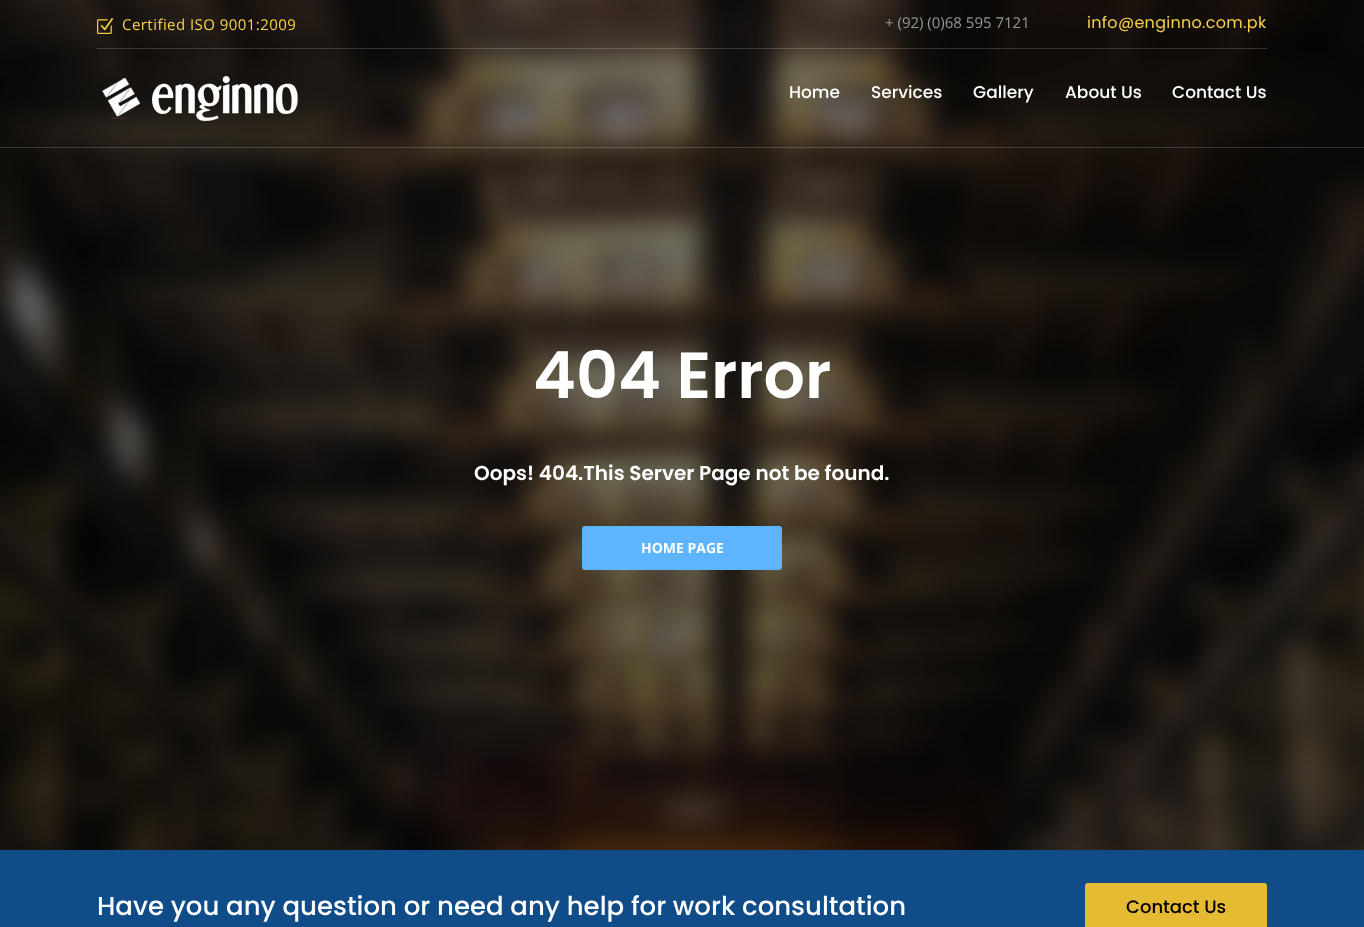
async function draw(canvas) {
  canvas.width = 1364
  canvas.height = 927
  const ctx = canvas.getContext('2d')
  ctx.miterLimit = 4
  ctx.fontKerning = 'normal'
  async function loadImage(src) {
    const img = new Image()
    img.src = src
    await img.decode()
    return img
  }

  ctx.fillStyle = '#fff'
  ctx.fillRect(0, 0, 1364, 927)
  ctx.drawImage(await loadImage('image2.png'), 0, 0, 1364, 850)
  ctx.fillStyle = '#ffffff2b'
  ctx.fillRect(97, 48, 1170, 1)
  ctx.drawImage(await loadImage('image0.png'), 97, 18, 16, 16)
  ctx.letterSpacing = '0.45px'
  ctx.font = '15px Open Sans'
  ctx.fillStyle = '#f8d24b'
  ctx.fillText('Certified ISO 9001:2009', 122, 30)
  ctx.letterSpacing = '0px'
  ctx.fillStyle = '#999'
  ctx.fillText('+ (92) (0)68 595 7121', 885, 28)
  ctx.letterSpacing = '0.3px'
  ctx.font = '16px Poppins'
  ctx.fillStyle = '#f8d24b'
  ctx.fillText('info@enginno.com.pk', 1087, 28)
  ctx.fillStyle = '#ffffff2b'
  ctx.fillRect(0, 147, 1364, 1)
  ctx.drawImage(await loadImage('image1.png'), 102, 76, 196, 45)
  ctx.letterSpacing = '0px'
  ctx.font = '500 17px Poppins'
  ctx.fillStyle = '#fff'
  ctx.fillText('Home', 789, 98)
  ctx.fillText('Services', 871, 98)
  ctx.fillText('Gallery', 973, 98)
  ctx.fillText('About Us', 1065, 98)
  ctx.fillText('Contact Us', 1172, 98)
  ctx.font = '600 65px Poppins'
  ctx.fillText('404 Error', 533, 398)
  ctx.font = '600 20px Poppins'
  ctx.fillText('Oops! 404.This Server Page not be found.', 474, 480)
  ctx.fillStyle = '#5db5ff'
  ctx.beginPath()
  ctx.roundRect(582, 526, 200, 44, 3)
  ctx.fill()
  ctx.font = 'bold 14px Open Sans'
  ctx.fillStyle = '#fff'
  ctx.fillText('HOME PAGE', 641, 553)
  ctx.fillStyle = '#0f4c88'
  ctx.fillRect(0, 850, 1364, 77)
  ctx.font = '500 26px Poppins'
  ctx.fillStyle = '#fff'
  ctx.fillText('Have you any question or need any help for work consultation', 97, 915)
  ctx.fillStyle = '#e5bb34'
  ctx.beginPath()
  ctx.roundRect(1085, 883, 182, 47, 3)
  ctx.fill()
  ctx.font = '500 18px Poppins'
  ctx.fillStyle = '#000'
  ctx.fillText('Contact Us', 1126, 913)
}

draw(document.querySelector('canvas'))
